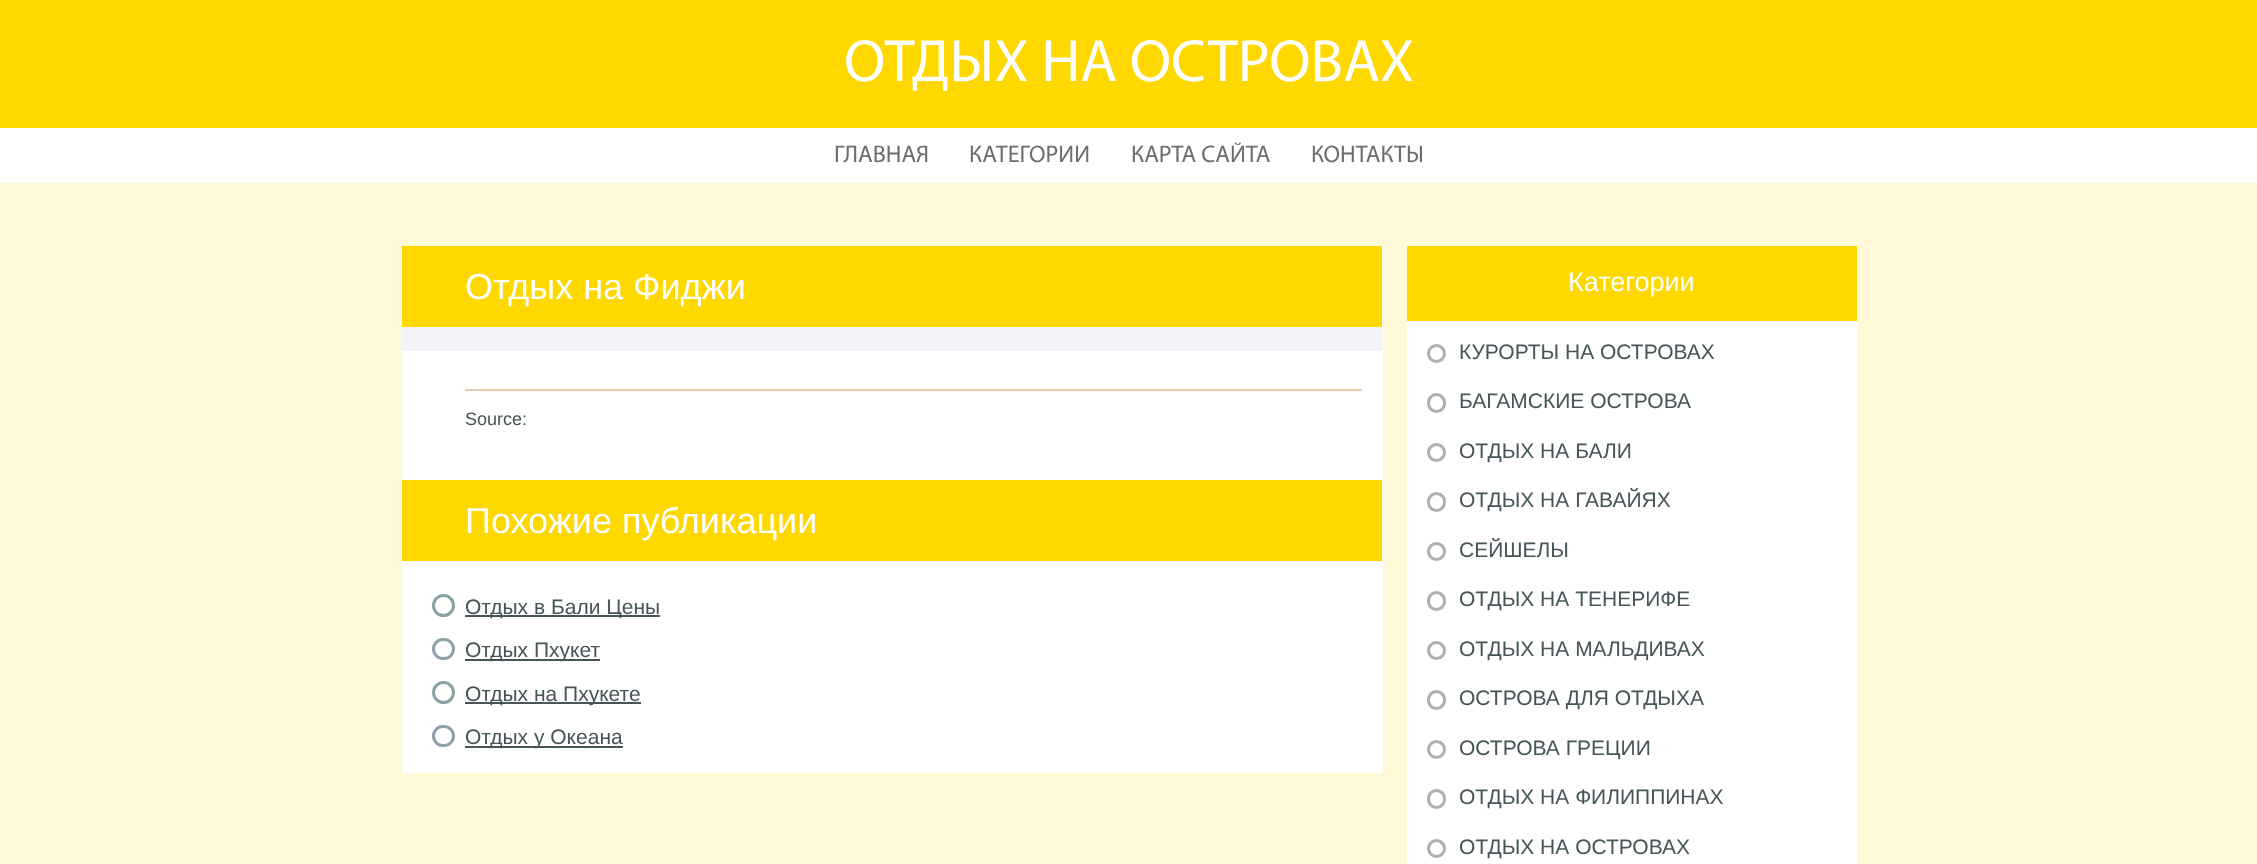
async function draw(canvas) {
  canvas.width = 2257
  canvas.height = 864
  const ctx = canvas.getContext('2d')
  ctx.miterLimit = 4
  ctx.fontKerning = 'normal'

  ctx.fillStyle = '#fff9d7'
  ctx.fillRect(0, 0, 2257, 864)
  ctx.fillStyle = '#ffd800'
  ctx.fillRect(0, 0, 2257, 128)
  ctx.font = '60px Myriad'
  ctx.fillStyle = '#fff'
  ctx.fillText('ОТДЫХ НА ОСТРОВАХ', 844, 81)
  ctx.fillRect(0, 128, 2257, 55)
  ctx.font = '24px Myriad'
  ctx.fillStyle = '#6d6d6f'
  ctx.fillText('ГЛАВНАЯ', 834, 162)
  ctx.fillText('КАТЕГОРИИ', 969, 162)
  ctx.fillText('КАРТА САЙТА', 1131, 162)
  ctx.fillText('КОНТАКТЫ', 1311, 162)
  ctx.fillStyle = '#fff'
  ctx.fillRect(402, 246, 981, 527)
  ctx.fillStyle = '#ffd800'
  ctx.fillRect(402, 246, 980, 81)
  ctx.font = '36px Liberation Sans'
  ctx.fillStyle = '#fff'
  ctx.fillText('Отдых на Фиджи', 465, 299)
  ctx.fillStyle = '#f3f3f9'
  ctx.fillRect(402, 327, 980, 24)
  ctx.fillStyle = '#e7c9ad'
  ctx.fillRect(465, 389, 897, 2)
  ctx.font = '18px Liberation Sans'
  ctx.fillStyle = '#465557'
  ctx.fillText('Source:', 465, 425)
  ctx.fillStyle = '#ffd800'
  ctx.fillRect(402, 480, 980, 81)
  ctx.font = '36px Liberation Sans'
  ctx.fillStyle = '#fff'
  ctx.fillText('Похожие публикации', 465, 533)
  ctx.beginPath()
  ctx.arc(443.5, 605.5, 10, 0, 2 * Math.PI)
  ctx.strokeStyle = '#8aa2a5'
  ctx.lineWidth = 3
  ctx.stroke()
  ctx.fillStyle = '#465557'
  ctx.fillRect(465, 615, 195, 2)
  ctx.font = '21px Liberation Sans'
  ctx.fillText('Отдых в Бали Цены', 465, 614)
  ctx.beginPath()
  ctx.roundRect(433.5, 639.5, 20, 19, 9.5)
  ctx.stroke()
  ctx.fillRect(465, 659, 135, 2)
  ctx.fillText('Отдых Пхукет', 465, 657)
  ctx.beginPath()
  ctx.arc(443.5, 692.5, 10, 0, 2 * Math.PI)
  ctx.stroke()
  ctx.fillRect(465, 702, 176, 2)
  ctx.fillText('Отдых на Пхукете', 465, 701)
  ctx.beginPath()
  ctx.roundRect(433.5, 726.5, 20, 19, 9.5)
  ctx.stroke()
  ctx.fillRect(465, 746, 158, 2)
  ctx.fillText('Отдых у Океана', 465, 744)
  ctx.fillStyle = '#fff'
  ctx.fillRect(1407, 321, 450, 543)
  ctx.fillStyle = '#ffd800'
  ctx.fillRect(1407, 246, 450, 75)
  ctx.font = '27px Liberation Sans'
  ctx.fillStyle = '#fff'
  ctx.fillText('Категории', 1568, 291)
  ctx.beginPath()
  ctx.arc(1436.5, 353.5, 8, 0, 2 * Math.PI)
  ctx.strokeStyle = '#afafaf'
  ctx.stroke()
  ctx.font = '21px Liberation Sans'
  ctx.fillStyle = '#465557'
  ctx.fillText('КУРОРТЫ НА ОСТРОВАХ', 1459, 359)
  ctx.beginPath()
  ctx.roundRect(1428.5, 394.5, 16, 17, 8)
  ctx.stroke()
  ctx.fillText('БАГАМСКИЕ ОСТРОВА', 1459, 408)
  ctx.beginPath()
  ctx.arc(1436.5, 452.5, 8, 0, 2 * Math.PI)
  ctx.stroke()
  ctx.fillText('ОТДЫХ НА БАЛИ', 1459, 458)
  ctx.beginPath()
  ctx.roundRect(1428.5, 493.5, 16, 17, 8)
  ctx.stroke()
  ctx.fillText('ОТДЫХ НА ГАВАЙЯХ', 1459, 507)
  ctx.beginPath()
  ctx.arc(1436.5, 551.5, 8, 0, 2 * Math.PI)
  ctx.stroke()
  ctx.fillText('СЕЙШЕЛЫ', 1459, 557)
  ctx.beginPath()
  ctx.roundRect(1428.5, 592.5, 16, 17, 8)
  ctx.stroke()
  ctx.fillText('ОТДЫХ НА ТЕНЕРИФЕ', 1459, 606)
  ctx.beginPath()
  ctx.arc(1436.5, 650.5, 8, 0, 2 * Math.PI)
  ctx.stroke()
  ctx.fillText('ОТДЫХ НА МАЛЬДИВАХ', 1459, 656)
  ctx.beginPath()
  ctx.roundRect(1428.5, 691.5, 16, 17, 8)
  ctx.stroke()
  ctx.fillText('ОСТРОВА ДЛЯ ОТДЫХА', 1459, 705)
  ctx.beginPath()
  ctx.arc(1436.5, 749.5, 8, 0, 2 * Math.PI)
  ctx.stroke()
  ctx.fillText('ОСТРОВА ГРЕЦИИ', 1459, 755)
  ctx.beginPath()
  ctx.roundRect(1428.5, 790.5, 16, 17, 8)
  ctx.stroke()
  ctx.fillText('ОТДЫХ НА ФИЛИППИНАХ', 1459, 804)
  ctx.beginPath()
  ctx.arc(1436.5, 848.5, 8, 0, 2 * Math.PI)
  ctx.stroke()
  ctx.fillText('ОТДЫХ НА ОСТРОВАХ', 1459, 854)
}

draw(document.querySelector('canvas'))
